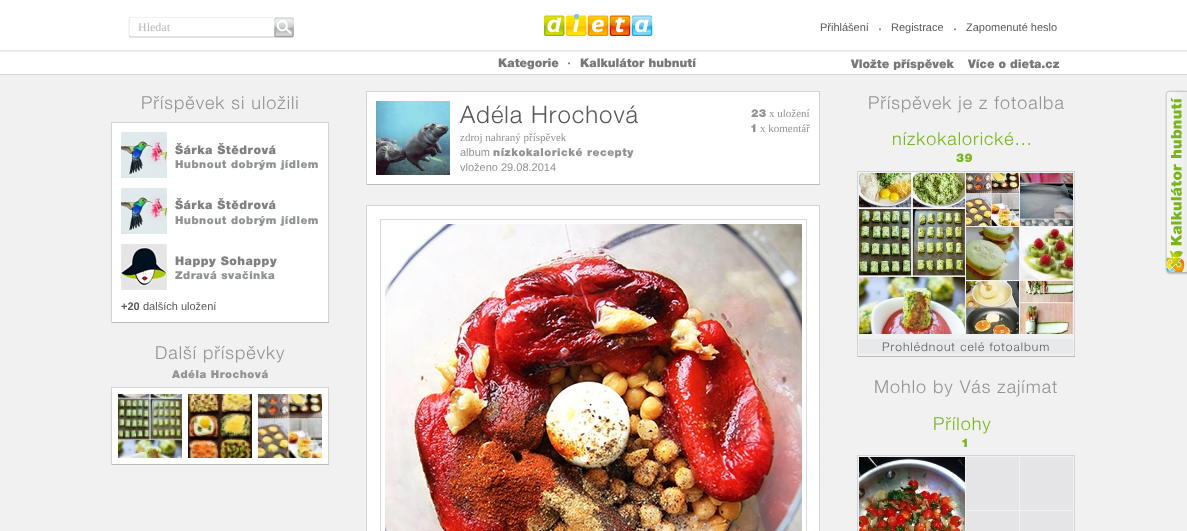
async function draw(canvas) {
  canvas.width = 1187
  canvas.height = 531
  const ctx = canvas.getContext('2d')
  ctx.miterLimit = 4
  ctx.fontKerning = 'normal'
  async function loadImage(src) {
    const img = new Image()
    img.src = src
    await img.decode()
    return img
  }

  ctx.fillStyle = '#f1f1f1'
  ctx.fillRect(0, 0, 1187, 531)
  ctx.fillStyle = '#fff'
  ctx.fillRect(0, 0, 1187, 50)
  ctx.drawImage(await loadImage('image0.png'), 128, 17, 146, 21)
  ctx.font = '12px Liberation Serif'
  ctx.fillStyle = '#b5b6b7'
  ctx.fillText('Hledat', 138, 31)
  ctx.drawImage(await loadImage('image1.png'), 274, 17, 20, 21)
  ctx.drawImage(await loadImage('image2.png'), 544, 14, 109, 22)
  ctx.font = '11px Liberation Sans'
  ctx.fillStyle = '#58585a'
  ctx.fillText('Přihlášení', 820, 31)
  ctx.drawImage(await loadImage('image3.png'), 879, 28, 2, 3)
  ctx.fillText('Registrace', 891, 31)
  ctx.drawImage(await loadImage('image3.png'), 954, 28, 2, 3)
  ctx.fillText('Zapomenuté heslo', 966, 31)
  ctx.drawImage(await loadImage('image4.png'), 0, 50, 1187, 25)
  ctx.font = '900 12px Helvetica Neue'
  ctx.fillStyle = '#77787b'
  ctx.fillText('Kategorie', 498, 67)
  ctx.drawImage(await loadImage('image3.png'), 568, 62, 2, 3)
  ctx.fillText('Kalkulátor hubnutí', 580, 67)
  ctx.fillText('Vložte příspěvek', 851, 68)
  ctx.fillText('Více o dieta.cz', 968, 68)
  ctx.letterSpacing = '1px'
  ctx.font = '300 18px Helvetica Neue'
  ctx.fillStyle = '#919394'
  ctx.fillText('Příspěvek si uložili', 141, 109)
  ctx.fillStyle = '#fff'
  ctx.fillRect(112, 123, 216, 199)
  ctx.fillStyle = '#d3d4d5'
  ctx.fillRect(111, 122, 218, 1)
  ctx.fillRect(328, 122, 1, 201)
  ctx.fillStyle = '#babbbb'
  ctx.fillRect(111, 322, 218, 1)
  ctx.fillStyle = '#d3d4d5'
  ctx.fillRect(111, 122, 1, 201)
  ctx.drawImage(await loadImage('image5.png'), 121, 132, 46, 46)
  ctx.letterSpacing = '0.5px'
  ctx.font = '900 12px Helvetica Neue'
  ctx.fillStyle = '#808080'
  ctx.fillText('Šárka Štědrová', 175, 154)
  ctx.font = '900 11px Helvetica Neue'
  ctx.fillStyle = '#919394'
  ctx.fillText('Hubnout dobrým jídlem', 175, 168)
  ctx.drawImage(await loadImage('image5.png'), 121, 188, 46, 46)
  ctx.font = '900 12px Helvetica Neue'
  ctx.fillStyle = '#808080'
  ctx.fillText('Šárka Štědrová', 175, 209)
  ctx.font = '900 11px Helvetica Neue'
  ctx.fillStyle = '#919394'
  ctx.fillText('Hubnout dobrým jídlem', 175, 224)
  ctx.drawImage(await loadImage('image6.png'), 121, 244, 46, 46)
  ctx.font = '900 12px Helvetica Neue'
  ctx.fillStyle = '#808080'
  ctx.fillText('Happy Sohappy', 175, 265)
  ctx.font = '900 11px Helvetica Neue'
  ctx.fillStyle = '#919394'
  ctx.fillText('Zdravá svačinka', 175, 279)
  ctx.letterSpacing = '0px'
  ctx.font = 'bold 11px Liberation Sans'
  ctx.fillStyle = '#58585a'
  ctx.fillText('+20', 121, 310)
  ctx.font = '11px Liberation Sans'
  ctx.fillText('dalších uložení', 143, 310)
  ctx.letterSpacing = '1px'
  ctx.font = '300 18px Helvetica Neue'
  ctx.fillStyle = '#919394'
  ctx.fillText('Další příspěvky', 155, 359)
  ctx.letterSpacing = '0.5px'
  ctx.font = '900 11px Helvetica Neue'
  ctx.fillText('Adéla Hrochová', 172, 378)
  ctx.fillStyle = '#fff'
  ctx.fillRect(112, 388, 216, 76)
  ctx.fillStyle = '#d3d4d5'
  ctx.fillRect(111, 387, 218, 1)
  ctx.fillRect(328, 387, 1, 78)
  ctx.fillStyle = '#babbbb'
  ctx.fillRect(111, 464, 218, 1)
  ctx.fillStyle = '#d3d4d5'
  ctx.fillRect(111, 387, 1, 78)
  ctx.drawImage(await loadImage('image7.png'), 118, 394, 64, 64)
  ctx.drawImage(await loadImage('image8.png'), 188, 394, 64, 64)
  ctx.drawImage(await loadImage('image9.png'), 258, 394, 64, 64)
  ctx.fillStyle = '#fff'
  ctx.fillRect(367, 92, 452, 92)
  ctx.fillStyle = '#d3d4d5'
  ctx.fillRect(366, 91, 454, 1)
  ctx.fillRect(819, 91, 1, 94)
  ctx.fillStyle = '#babbbb'
  ctx.fillRect(366, 184, 454, 1)
  ctx.fillStyle = '#d3d4d5'
  ctx.fillRect(366, 91, 1, 94)
  ctx.drawImage(await loadImage('image10.png'), 376, 101, 74, 74)
  ctx.letterSpacing = '1px'
  ctx.font = '300 24px Helvetica Neue'
  ctx.fillStyle = '#58585a'
  ctx.fillText('Adéla Hrochová', 460, 123)
  ctx.letterSpacing = '0px'
  ctx.font = '11px Liberation Serif'
  ctx.fillStyle = '#919394'
  ctx.fillText('zdroj nahraný příspěvek', 460, 141)
  ctx.font = '11px Liberation Sans'
  ctx.fillText('album', 460, 156)
  ctx.letterSpacing = '0.5px'
  ctx.font = '900 11px Helvetica Neue'
  ctx.fillText('nízkokalorické recepty', 493, 156)
  ctx.letterSpacing = '0px'
  ctx.font = '11px Liberation Sans'
  ctx.fillText('vloženo 29.08.2014', 460, 171)
  ctx.letterSpacing = '0.5px'
  ctx.font = '900 11px Helvetica Neue'
  ctx.fillText('23', 751, 117)
  ctx.letterSpacing = '0px'
  ctx.font = '11px Liberation Serif'
  ctx.fillText('x uložení', 769, 117)
  ctx.letterSpacing = '0.5px'
  ctx.font = '900 11px Helvetica Neue'
  ctx.fillText('1', 750, 132)
  ctx.letterSpacing = '0px'
  ctx.font = '11px Liberation Serif'
  ctx.fillText('x komentář', 760, 132)
  ctx.fillStyle = '#fff'
  ctx.fillRect(367, 206, 452, 325)
  ctx.fillStyle = '#d3d4d5'
  ctx.fillRect(366, 205, 454, 1)
  ctx.fillRect(819, 205, 1, 326)
  ctx.fillRect(366, 205, 1, 326)
  ctx.strokeStyle = '#d9dada'
  ctx.strokeRect(380.5, 219.5, 426, 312)
  ctx.drawImage(await loadImage('image11.png'), 385, 224, 417, 307)
  ctx.letterSpacing = '1px'
  ctx.font = '300 18px Helvetica Neue'
  ctx.fillStyle = '#919394'
  ctx.fillText('Příspěvek je z fotoalba', 868, 109)
  ctx.fillStyle = '#79b51c'
  ctx.fillText('nízkokalorické...', 892, 145)
  ctx.letterSpacing = '0.5px'
  ctx.font = '900 12px Helvetica Neue'
  ctx.fillText('39', 956, 162)
  ctx.fillStyle = '#d3d4d5'
  ctx.fillRect(857, 171, 218, 1)
  ctx.fillRect(1074, 171, 1, 186)
  ctx.fillStyle = '#babbbb'
  ctx.fillRect(857, 356, 218, 1)
  ctx.fillStyle = '#d3d4d5'
  ctx.fillRect(857, 171, 1, 186)
  ctx.drawImage(await loadImage('image12.png'), 859, 173, 106, 161)
  ctx.drawImage(await loadImage('image13.png'), 966, 173, 53, 53)
  ctx.drawImage(await loadImage('image14.png'), 1020, 173, 53, 53)
  ctx.drawImage(await loadImage('image15.png'), 966, 227, 53, 53)
  ctx.drawImage(await loadImage('image16.png'), 1020, 227, 53, 53)
  ctx.drawImage(await loadImage('image17.png'), 966, 281, 53, 53)
  ctx.drawImage(await loadImage('image18.png'), 1020, 281, 53, 53)
  ctx.fillStyle = '#e8e9ea'
  ctx.fillRect(859, 339, 214, 15)
  ctx.letterSpacing = '1px'
  ctx.font = '300 12px Helvetica Neue'
  ctx.fillStyle = '#58585a'
  ctx.fillText('Prohlédnout celé fotoalbum', 882, 351)
  ctx.font = '300 18px Helvetica Neue'
  ctx.fillStyle = '#919394'
  ctx.fillText('Mohlo by Vás zajímat', 874, 393)
  ctx.fillStyle = '#79b51c'
  ctx.fillText('Přílohy', 933, 430)
  ctx.letterSpacing = '0.5px'
  ctx.font = '900 12px Helvetica Neue'
  ctx.fillText('1', 961, 447)
  ctx.fillStyle = '#d3d4d5'
  ctx.fillRect(857, 455, 218, 1)
  ctx.fillRect(1074, 455, 1, 76)
  ctx.fillRect(857, 455, 1, 76)
  ctx.drawImage(await loadImage('image19.png'), 859, 457, 106, 74)
  ctx.fillStyle = '#e5e5e7'
  ctx.fillRect(966, 457, 53, 53)
  ctx.fillRect(1020, 457, 53, 53)
  ctx.fillRect(966, 511, 53, 20)
  ctx.fillRect(1020, 511, 53, 20)
  ctx.drawImage(await loadImage('image20.png'), 1165, 90, 22, 185)
}

draw(document.querySelector('canvas'))
